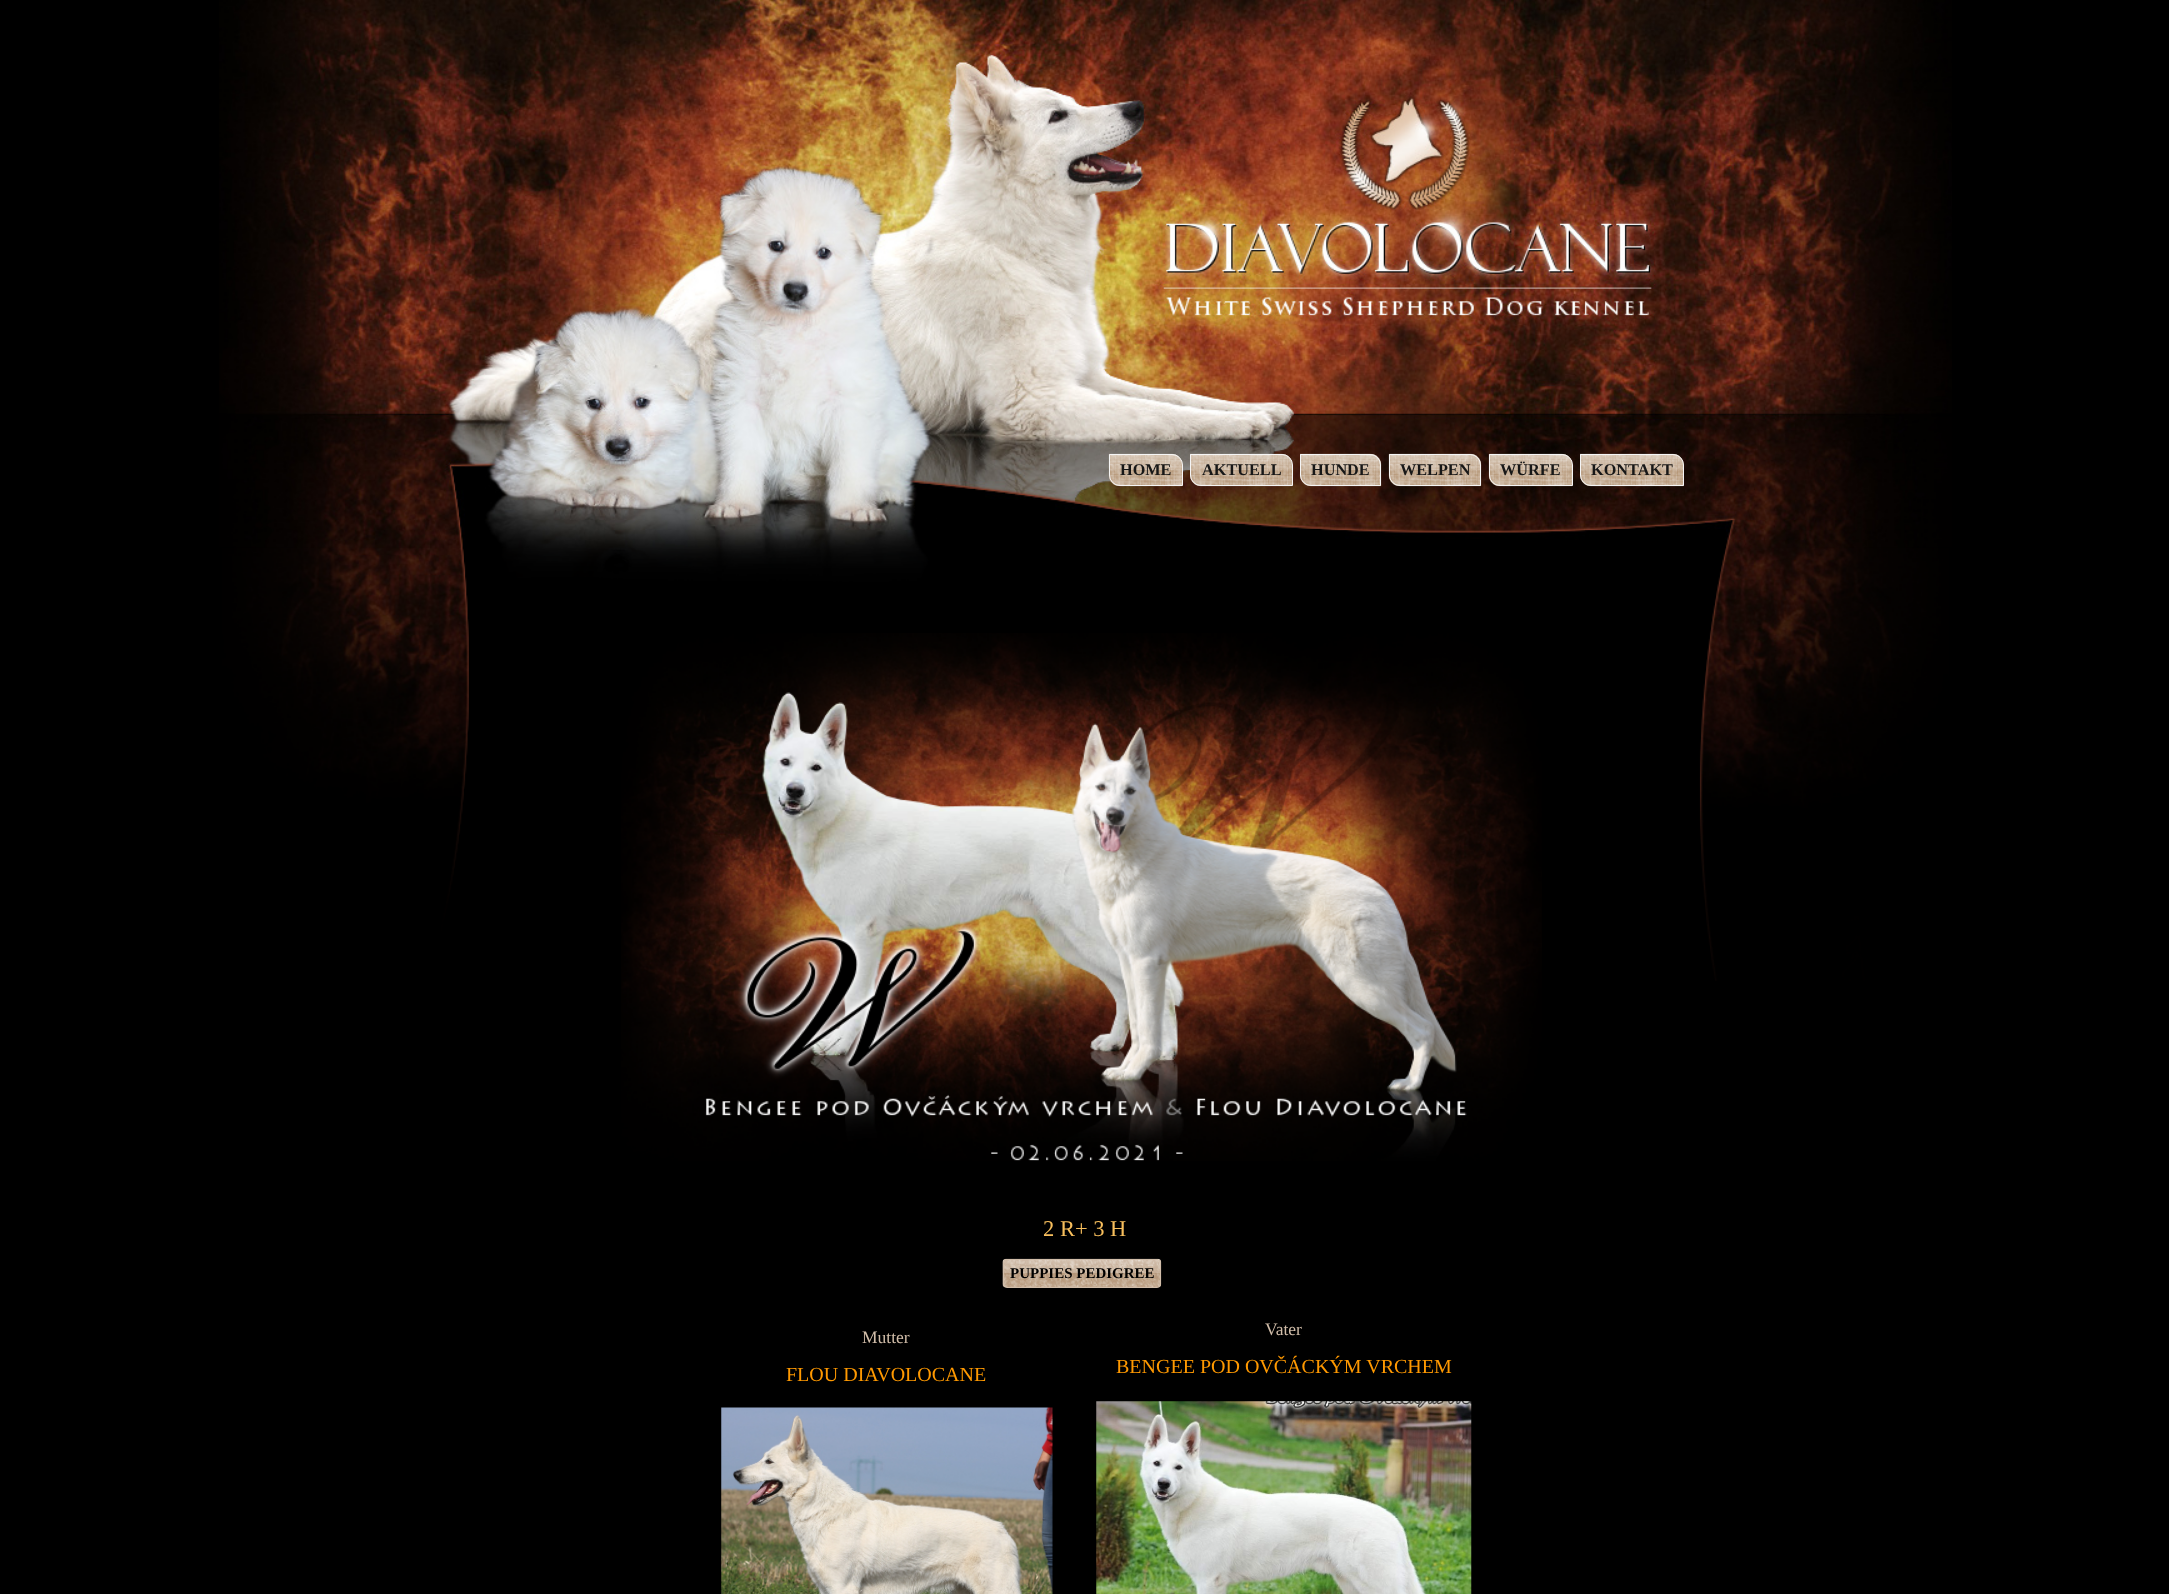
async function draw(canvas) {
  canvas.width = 2169
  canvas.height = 1594
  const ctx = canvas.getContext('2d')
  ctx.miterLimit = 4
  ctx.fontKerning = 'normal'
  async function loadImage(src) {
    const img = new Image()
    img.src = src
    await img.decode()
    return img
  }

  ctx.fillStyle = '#000'
  ctx.fillRect(0, 0, 2169, 1594)
  ctx.drawImage(await loadImage('image0.png'), 222, 547, 1727, 434)
  ctx.drawImage(await loadImage('image1.png'), 219, 0, 1733, 548)
  ctx.drawImage(await loadImage('image2.png'), 472, 112, 1226, 390)
  ctx.drawImage(await loadImage('image3.png'), 1108, 453, 75, 34)
  ctx.beginPath()
  ctx.roundRect(1109.5, 454.5, 73, 31, [0, 10.5, 0, 10.5])
  ctx.strokeStyle = '#f5f5f5'
  ctx.stroke()
  ctx.font = 'bold 16.25px Liberation Serif'
  ctx.fillStyle = '#171717'
  ctx.fillText('HOME', 1120, 475)
  ctx.drawImage(await loadImage('image4.png'), 1190, 453, 103, 34)
  ctx.beginPath()
  ctx.roundRect(1190.5, 454.5, 102, 31, [0, 10.5, 0, 10.5])
  ctx.stroke()
  ctx.fillText('AKTUELL', 1202, 475)
  ctx.drawImage(await loadImage('image5.png'), 1300, 453, 82, 34)
  ctx.beginPath()
  ctx.roundRect(1300.5, 454.5, 80, 31, [0, 10.5, 0, 10.5])
  ctx.stroke()
  ctx.fillText('HUNDE', 1311, 475)
  ctx.drawImage(await loadImage('image6.png'), 1388, 453, 94, 34)
  ctx.beginPath()
  ctx.roundRect(1389.5, 454.5, 91, 31, [0, 10.5, 0, 10.5])
  ctx.stroke()
  ctx.fillText('WELPEN', 1400, 475)
  ctx.drawImage(await loadImage('image7.png'), 1488, 453, 85, 34)
  ctx.beginPath()
  ctx.roundRect(1489.5, 454.5, 83, 31, [0, 10.5, 0, 10.5])
  ctx.stroke()
  ctx.fillText('WÜRFE', 1500, 475)
  ctx.drawImage(await loadImage('image8.png'), 1580, 453, 104, 34)
  ctx.beginPath()
  ctx.roundRect(1580.5, 454.5, 103, 31, [0, 10.5, 0, 10.5])
  ctx.stroke()
  ctx.fillText('KONTAKT', 1591, 475)
  ctx.drawImage(await loadImage('image9.png'), 621, 633, 921, 528)
  ctx.font = '22.5px Liberation Serif'
  ctx.fillStyle = '#f8bf5d'
  ctx.fillText('2 R+ 3 H', 1043, 1236)
  ctx.drawImage(await loadImage('image10.png'), 1002, 1258, 160, 30)
  ctx.beginPath()
  ctx.roundRect(1003.5, 1259.5, 157, 28, 3.5)
  ctx.strokeStyle = '#d1bda9'
  ctx.stroke()
  ctx.font = 'bold 15px Liberation Serif'
  ctx.fillStyle = '#000'
  ctx.fillText('PUPPIES PEDIGREE', 1010, 1278)
  ctx.font = '17.5px Liberation Serif'
  ctx.fillStyle = '#d1bda9'
  ctx.fillText('Mutter', 862, 1343)
  ctx.font = '20px Liberation Serif'
  ctx.fillStyle = '#f90'
  ctx.fillText('FLOU DIAVOLOCANE', 786, 1381)
  ctx.drawImage(await loadImage('image11.png'), 721, 1407, 332, 187)
  ctx.font = '17.5px Liberation Serif'
  ctx.fillStyle = '#d1bda9'
  ctx.fillText('Vater', 1265, 1335)
  ctx.font = '20px Liberation Serif'
  ctx.fillStyle = '#f90'
  ctx.fillText('BENGEE POD OVČÁCKÝM VRCHEM', 1116, 1373)
  ctx.drawImage(await loadImage('image12.png'), 1096, 1401, 376, 193)
}

draw(document.querySelector('canvas'))
